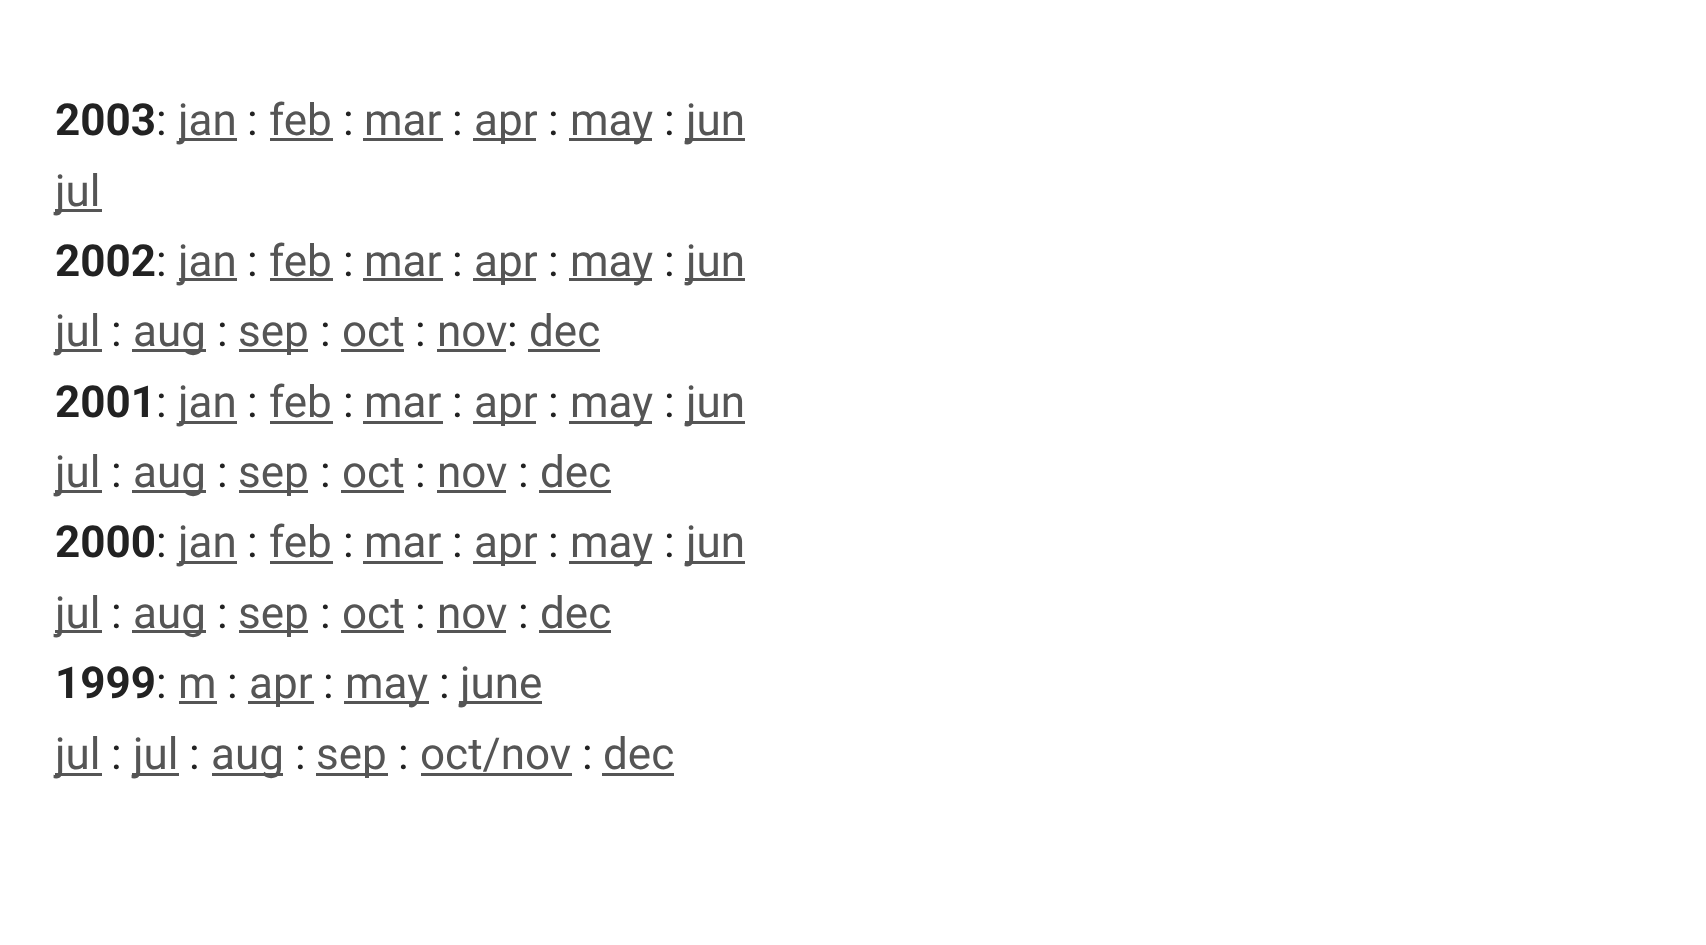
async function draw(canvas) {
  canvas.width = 1706
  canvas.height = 945
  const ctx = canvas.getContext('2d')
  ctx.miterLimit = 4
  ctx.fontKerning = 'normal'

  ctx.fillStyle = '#fff'
  ctx.fillRect(0, 0, 1706, 945)
  ctx.font = 'bold 44px Roboto'
  ctx.fillStyle = '#222'
  ctx.fillText('2003', 55, 135)
  ctx.font = '44px Roboto'
  ctx.fillText(':', 156, 135)
  ctx.fillStyle = '#555'
  ctx.fillRect(179, 138, 58, 3)
  ctx.fillText('jan', 178, 135)
  ctx.fillStyle = '#222'
  ctx.fillText(':', 247, 135)
  ctx.fillStyle = '#555'
  ctx.fillText('feb', 269, 135)
  ctx.fillRect(270, 138, 63, 3)
  ctx.fillStyle = '#222'
  ctx.fillText(':', 343, 135)
  ctx.fillStyle = '#555'
  ctx.fillText('mar', 364, 135)
  ctx.fillRect(363, 138, 80, 3)
  ctx.fillStyle = '#222'
  ctx.fillText(':', 452, 135)
  ctx.fillStyle = '#555'
  ctx.fillRect(473, 138, 63, 3)
  ctx.fillText('apr', 474, 135)
  ctx.fillStyle = '#222'
  ctx.fillText(':', 548, 135)
  ctx.fillStyle = '#555'
  ctx.fillRect(569, 138, 83, 3)
  ctx.fillText('may', 570, 135)
  ctx.fillStyle = '#222'
  ctx.fillText(':', 664, 135)
  ctx.fillStyle = '#555'
  ctx.fillRect(685, 138, 60, 3)
  ctx.fillText('jun', 686, 135)
  ctx.fillRect(55, 209, 47, 3)
  ctx.fillText('jul', 55, 206)
  ctx.font = 'bold 44px Roboto'
  ctx.fillStyle = '#222'
  ctx.fillText('2002', 55, 276)
  ctx.font = '44px Roboto'
  ctx.fillText(':', 156, 276)
  ctx.fillStyle = '#555'
  ctx.fillRect(179, 278, 58, 3)
  ctx.fillText('jan', 178, 276)
  ctx.fillStyle = '#222'
  ctx.fillText(':', 247, 276)
  ctx.fillStyle = '#555'
  ctx.fillText('feb', 269, 276)
  ctx.fillRect(270, 278, 63, 3)
  ctx.fillStyle = '#222'
  ctx.fillText(':', 343, 276)
  ctx.fillStyle = '#555'
  ctx.fillText('mar', 364, 276)
  ctx.fillRect(363, 278, 80, 3)
  ctx.fillStyle = '#222'
  ctx.fillText(':', 452, 276)
  ctx.fillStyle = '#555'
  ctx.fillRect(473, 278, 63, 3)
  ctx.fillText('apr', 474, 276)
  ctx.fillStyle = '#222'
  ctx.fillText(':', 548, 276)
  ctx.fillStyle = '#555'
  ctx.fillRect(569, 278, 83, 3)
  ctx.fillText('may', 570, 276)
  ctx.fillStyle = '#222'
  ctx.fillText(':', 664, 276)
  ctx.fillStyle = '#555'
  ctx.fillRect(685, 278, 60, 3)
  ctx.fillText('jun', 686, 276)
  ctx.fillRect(55, 349, 47, 3)
  ctx.fillText('jul', 55, 346)
  ctx.fillStyle = '#222'
  ctx.fillText(':', 111, 346)
  ctx.fillStyle = '#555'
  ctx.fillRect(132, 349, 74, 3)
  ctx.fillText('aug', 133, 346)
  ctx.fillStyle = '#222'
  ctx.fillText(':', 217, 346)
  ctx.fillStyle = '#555'
  ctx.fillRect(239, 349, 69, 3)
  ctx.fillText('sep', 238, 346)
  ctx.fillStyle = '#222'
  ctx.fillText(':', 320, 346)
  ctx.fillStyle = '#555'
  ctx.fillText('oct', 342, 346)
  ctx.fillRect(341, 349, 63, 3)
  ctx.fillStyle = '#222'
  ctx.fillText(':', 415, 346)
  ctx.fillStyle = '#555'
  ctx.fillText('nov', 437, 346)
  ctx.fillRect(437, 349, 69, 3)
  ctx.fillStyle = '#222'
  ctx.fillText(':', 507, 346)
  ctx.fillStyle = '#555'
  ctx.fillText('dec', 529, 346)
  ctx.fillRect(528, 349, 72, 3)
  ctx.font = 'bold 44px Roboto'
  ctx.fillStyle = '#222'
  ctx.fillText('2001', 55, 417)
  ctx.font = '44px Roboto'
  ctx.fillText(':', 156, 417)
  ctx.fillStyle = '#555'
  ctx.fillRect(179, 421, 58, 3)
  ctx.fillText('jan', 178, 417)
  ctx.fillStyle = '#222'
  ctx.fillText(':', 247, 417)
  ctx.fillStyle = '#555'
  ctx.fillText('feb', 269, 417)
  ctx.fillRect(270, 421, 63, 3)
  ctx.fillStyle = '#222'
  ctx.fillText(':', 343, 417)
  ctx.fillStyle = '#555'
  ctx.fillText('mar', 364, 417)
  ctx.fillRect(363, 421, 80, 3)
  ctx.fillStyle = '#222'
  ctx.fillText(':', 452, 417)
  ctx.fillStyle = '#555'
  ctx.fillRect(473, 421, 63, 3)
  ctx.fillText('apr', 474, 417)
  ctx.fillStyle = '#222'
  ctx.fillText(':', 548, 417)
  ctx.fillStyle = '#555'
  ctx.fillRect(569, 421, 83, 3)
  ctx.fillText('may', 570, 417)
  ctx.fillStyle = '#222'
  ctx.fillText(':', 664, 417)
  ctx.fillStyle = '#555'
  ctx.fillRect(685, 421, 60, 3)
  ctx.fillText('jun', 686, 417)
  ctx.fillRect(55, 490, 47, 3)
  ctx.fillText('jul', 55, 487)
  ctx.fillStyle = '#222'
  ctx.fillText(':', 111, 487)
  ctx.fillStyle = '#555'
  ctx.fillRect(132, 490, 74, 3)
  ctx.fillText('aug', 133, 487)
  ctx.fillStyle = '#222'
  ctx.fillText(':', 217, 487)
  ctx.fillStyle = '#555'
  ctx.fillRect(239, 490, 69, 3)
  ctx.fillText('sep', 238, 487)
  ctx.fillStyle = '#222'
  ctx.fillText(':', 320, 487)
  ctx.fillStyle = '#555'
  ctx.fillText('oct', 342, 487)
  ctx.fillRect(341, 490, 63, 3)
  ctx.fillStyle = '#222'
  ctx.fillText(':', 415, 487)
  ctx.fillStyle = '#555'
  ctx.fillText('nov', 437, 487)
  ctx.fillRect(437, 490, 69, 3)
  ctx.fillStyle = '#222'
  ctx.fillText(':', 518, 487)
  ctx.fillStyle = '#555'
  ctx.fillText('dec', 540, 487)
  ctx.fillRect(539, 490, 72, 3)
  ctx.font = 'bold 44px Roboto'
  ctx.fillStyle = '#222'
  ctx.fillText('2000', 55, 557)
  ctx.font = '44px Roboto'
  ctx.fillText(':', 156, 557)
  ctx.fillStyle = '#555'
  ctx.fillRect(179, 561, 58, 3)
  ctx.fillText('jan', 178, 557)
  ctx.fillStyle = '#222'
  ctx.fillText(':', 247, 557)
  ctx.fillStyle = '#555'
  ctx.fillText('feb', 269, 557)
  ctx.fillRect(270, 561, 63, 3)
  ctx.fillStyle = '#222'
  ctx.fillText(':', 343, 557)
  ctx.fillStyle = '#555'
  ctx.fillText('mar', 364, 557)
  ctx.fillRect(363, 561, 80, 3)
  ctx.fillStyle = '#222'
  ctx.fillText(':', 452, 557)
  ctx.fillStyle = '#555'
  ctx.fillRect(473, 561, 63, 3)
  ctx.fillText('apr', 474, 557)
  ctx.fillStyle = '#222'
  ctx.fillText(':', 548, 557)
  ctx.fillStyle = '#555'
  ctx.fillRect(569, 561, 83, 3)
  ctx.fillText('may', 570, 557)
  ctx.fillStyle = '#222'
  ctx.fillText(':', 664, 557)
  ctx.fillStyle = '#555'
  ctx.fillRect(685, 561, 60, 3)
  ctx.fillText('jun', 686, 557)
  ctx.fillRect(55, 630, 47, 3)
  ctx.fillText('jul', 55, 628)
  ctx.fillStyle = '#222'
  ctx.fillText(':', 111, 628)
  ctx.fillStyle = '#555'
  ctx.fillRect(132, 630, 74, 3)
  ctx.fillText('aug', 133, 628)
  ctx.fillStyle = '#222'
  ctx.fillText(':', 217, 628)
  ctx.fillStyle = '#555'
  ctx.fillRect(239, 630, 69, 3)
  ctx.fillText('sep', 238, 628)
  ctx.fillStyle = '#222'
  ctx.fillText(':', 320, 628)
  ctx.fillStyle = '#555'
  ctx.fillText('oct', 342, 628)
  ctx.fillRect(341, 630, 63, 3)
  ctx.fillStyle = '#222'
  ctx.fillText(':', 415, 628)
  ctx.fillStyle = '#555'
  ctx.fillText('nov', 437, 628)
  ctx.fillRect(437, 630, 69, 3)
  ctx.fillStyle = '#222'
  ctx.fillText(':', 518, 628)
  ctx.fillStyle = '#555'
  ctx.fillText('dec', 540, 628)
  ctx.fillRect(539, 630, 72, 3)
  ctx.font = 'bold 44px Roboto'
  ctx.fillStyle = '#222'
  ctx.fillText('1999', 55, 698)
  ctx.font = '44px Roboto'
  ctx.fillText(':', 156, 698)
  ctx.fillStyle = '#555'
  ctx.fillText('m', 178, 698)
  ctx.fillRect(179, 701, 38, 3)
  ctx.fillStyle = '#222'
  ctx.fillText(':', 227, 698)
  ctx.fillStyle = '#555'
  ctx.fillRect(248, 701, 66, 3)
  ctx.fillText('apr', 249, 698)
  ctx.fillStyle = '#222'
  ctx.fillText(':', 323, 698)
  ctx.fillStyle = '#555'
  ctx.fillRect(344, 701, 85, 3)
  ctx.fillText('may', 345, 698)
  ctx.fillStyle = '#222'
  ctx.fillText(':', 439, 698)
  ctx.fillStyle = '#555'
  ctx.fillRect(459, 701, 83, 3)
  ctx.fillText('june', 460, 698)
  ctx.fillRect(55, 773, 47, 3)
  ctx.fillText('jul', 55, 769)
  ctx.fillStyle = '#222'
  ctx.fillText(':', 111, 769)
  ctx.fillStyle = '#555'
  ctx.fillRect(132, 773, 47, 3)
  ctx.fillText('jul', 133, 769)
  ctx.fillStyle = '#222'
  ctx.fillText(':', 189, 769)
  ctx.fillStyle = '#555'
  ctx.fillRect(212, 773, 71, 3)
  ctx.fillText('aug', 211, 769)
  ctx.fillStyle = '#222'
  ctx.fillText(':', 295, 769)
  ctx.fillStyle = '#555'
  ctx.fillRect(316, 773, 72, 3)
  ctx.fillText('sep', 316, 769)
  ctx.fillStyle = '#222'
  ctx.fillText(':', 398, 769)
  ctx.fillStyle = '#555'
  ctx.fillText('oct/nov', 420, 769)
  ctx.fillRect(421, 773, 151, 3)
  ctx.fillStyle = '#222'
  ctx.fillText(':', 582, 769)
  ctx.fillStyle = '#555'
  ctx.fillText('dec', 603, 769)
  ctx.fillRect(602, 773, 72, 3)
}

draw(document.querySelector('canvas'))
